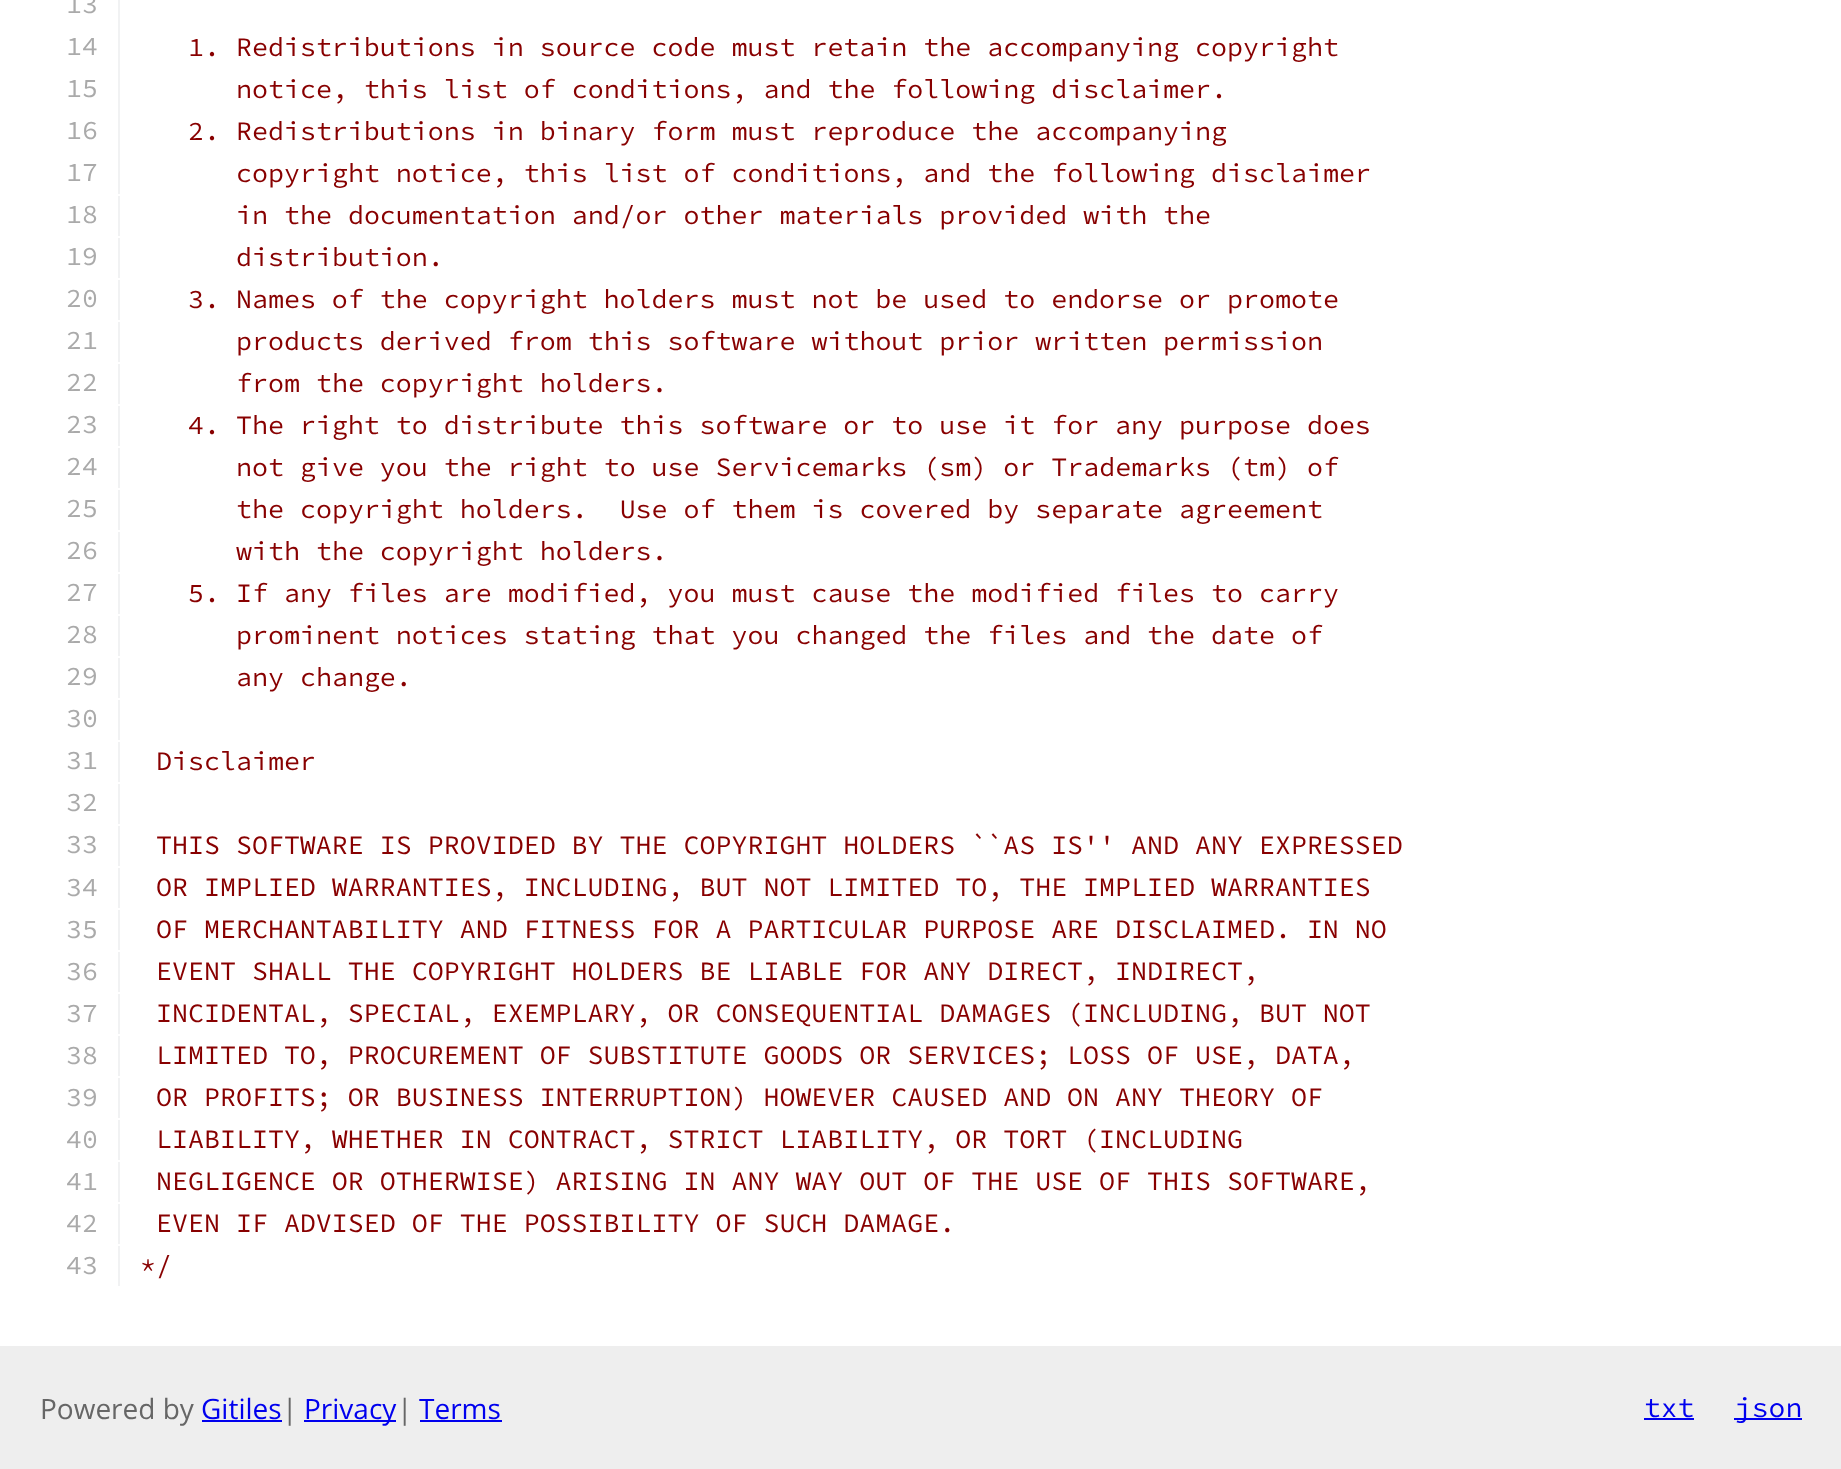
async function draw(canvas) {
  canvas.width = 1841
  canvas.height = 1469
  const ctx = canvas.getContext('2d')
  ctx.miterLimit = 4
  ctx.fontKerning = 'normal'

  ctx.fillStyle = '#fff'
  ctx.fillRect(0, 0, 1841, 1469)
  ctx.fillStyle = '#f1f2f3'
  ctx.fillRect(118, 0, 2, 194)
  ctx.font = '200 26.65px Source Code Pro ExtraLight'
  ctx.fillStyle = '#aaa'
  ctx.fillText('13', 66, 13)
  ctx.fillText('14', 66, 55)
  ctx.fillStyle = '#800'
  ctx.fillText('1. Redistributions in source code must retain the accompanying copyright', 188, 56)
  ctx.fillStyle = '#aaa'
  ctx.fillText('15', 66, 97)
  ctx.fillStyle = '#800'
  ctx.fillText('notice, this list of conditions, and the following disclaimer.', 236, 98)
  ctx.fillStyle = '#aaa'
  ctx.fillText('16', 66, 139)
  ctx.fillStyle = '#800'
  ctx.fillText('2. Redistributions in binary form must reproduce the accompanying', 188, 140)
  ctx.fillStyle = '#aaa'
  ctx.fillText('17', 66, 181)
  ctx.fillStyle = '#800'
  ctx.fillText('copyright notice, this list of conditions, and the following disclaimer', 236, 182)
  ctx.fillStyle = '#f1f2f3'
  ctx.fillRect(118, 196, 2, 40)
  ctx.fillStyle = '#aaa'
  ctx.fillText('18', 66, 223)
  ctx.fillStyle = '#800'
  ctx.fillText('in the documentation and/or other materials provided with the', 236, 224)
  ctx.fillStyle = '#f1f2f3'
  ctx.fillRect(118, 238, 2, 40)
  ctx.fillStyle = '#aaa'
  ctx.fillText('19', 66, 265)
  ctx.fillStyle = '#800'
  ctx.fillText('distribution.', 236, 266)
  ctx.fillStyle = '#f1f2f3'
  ctx.fillRect(118, 280, 2, 40)
  ctx.fillStyle = '#aaa'
  ctx.fillText('20', 66, 307)
  ctx.fillStyle = '#800'
  ctx.fillText('3. Names of the copyright holders must not be used to endorse or promote', 188, 308)
  ctx.fillStyle = '#f1f2f3'
  ctx.fillRect(118, 322, 2, 40)
  ctx.fillStyle = '#aaa'
  ctx.fillText('21', 66, 349)
  ctx.fillStyle = '#800'
  ctx.fillText('products derived from this software without prior written permission', 236, 350)
  ctx.fillStyle = '#f1f2f3'
  ctx.fillRect(118, 364, 2, 40)
  ctx.fillStyle = '#aaa'
  ctx.fillText('22', 66, 391)
  ctx.fillStyle = '#800'
  ctx.fillText('from the copyright holders.', 236, 392)
  ctx.fillStyle = '#f1f2f3'
  ctx.fillRect(118, 406, 2, 40)
  ctx.fillStyle = '#aaa'
  ctx.fillText('23', 66, 433)
  ctx.fillStyle = '#800'
  ctx.fillText('4. The right to distribute this software or to use it for any purpose does', 188, 434)
  ctx.fillStyle = '#f1f2f3'
  ctx.fillRect(118, 448, 2, 40)
  ctx.fillStyle = '#aaa'
  ctx.fillText('24', 66, 475)
  ctx.fillStyle = '#800'
  ctx.fillText('not give you the right to use Servicemarks (sm) or Trademarks (tm) of', 236, 476)
  ctx.fillStyle = '#f1f2f3'
  ctx.fillRect(118, 490, 2, 40)
  ctx.fillStyle = '#aaa'
  ctx.fillText('25', 66, 517)
  ctx.fillStyle = '#800'
  ctx.fillText('the copyright holders.  Use of them is covered by separate agreement', 236, 518)
  ctx.fillStyle = '#f1f2f3'
  ctx.fillRect(118, 532, 2, 40)
  ctx.fillStyle = '#aaa'
  ctx.fillText('26', 66, 559)
  ctx.fillStyle = '#800'
  ctx.fillText('with the copyright holders.', 236, 560)
  ctx.fillStyle = '#f1f2f3'
  ctx.fillRect(118, 574, 2, 40)
  ctx.fillStyle = '#aaa'
  ctx.fillText('27', 66, 601)
  ctx.fillStyle = '#800'
  ctx.fillText('5. If any files are modified, you must cause the modified files to carry', 188, 602)
  ctx.fillStyle = '#f1f2f3'
  ctx.fillRect(118, 616, 2, 40)
  ctx.fillStyle = '#aaa'
  ctx.fillText('28', 66, 643)
  ctx.fillStyle = '#800'
  ctx.fillText('prominent notices stating that you changed the files and the date of', 236, 644)
  ctx.fillStyle = '#f1f2f3'
  ctx.fillRect(118, 658, 2, 40)
  ctx.fillStyle = '#aaa'
  ctx.fillText('29', 66, 685)
  ctx.fillStyle = '#800'
  ctx.fillText('any change.', 236, 686)
  ctx.fillStyle = '#f1f2f3'
  ctx.fillRect(118, 700, 2, 40)
  ctx.fillStyle = '#aaa'
  ctx.fillText('30', 66, 727)
  ctx.fillStyle = '#f1f2f3'
  ctx.fillRect(118, 742, 2, 40)
  ctx.fillStyle = '#aaa'
  ctx.fillText('31', 66, 769)
  ctx.fillStyle = '#800'
  ctx.fillText('Disclaimer', 156, 770)
  ctx.fillStyle = '#f1f2f3'
  ctx.fillRect(118, 784, 2, 40)
  ctx.fillStyle = '#aaa'
  ctx.fillText('32', 66, 811)
  ctx.fillStyle = '#f1f2f3'
  ctx.fillRect(118, 826, 2, 40)
  ctx.fillStyle = '#aaa'
  ctx.fillText('33', 66, 853)
  ctx.fillStyle = '#800'
  ctx.fillText('THIS SOFTWARE IS PROVIDED BY THE COPYRIGHT HOLDERS ``AS IS\'\' AND ANY EXPRESSED', 156, 854)
  ctx.fillStyle = '#f1f2f3'
  ctx.fillRect(118, 868, 2, 40)
  ctx.fillStyle = '#aaa'
  ctx.fillText('34', 66, 896)
  ctx.fillStyle = '#800'
  ctx.fillText('OR IMPLIED WARRANTIES, INCLUDING, BUT NOT LIMITED TO, THE IMPLIED WARRANTIES', 156, 896)
  ctx.fillStyle = '#f1f2f3'
  ctx.fillRect(118, 910, 2, 40)
  ctx.fillStyle = '#aaa'
  ctx.fillText('35', 66, 938)
  ctx.fillStyle = '#800'
  ctx.fillText('OF MERCHANTABILITY AND FITNESS FOR A PARTICULAR PURPOSE ARE DISCLAIMED. IN NO', 156, 938)
  ctx.fillStyle = '#f1f2f3'
  ctx.fillRect(118, 952, 2, 40)
  ctx.fillStyle = '#aaa'
  ctx.fillText('36', 66, 980)
  ctx.fillStyle = '#800'
  ctx.fillText('EVENT SHALL THE COPYRIGHT HOLDERS BE LIABLE FOR ANY DIRECT, INDIRECT,', 156, 980)
  ctx.fillStyle = '#f1f2f3'
  ctx.fillRect(118, 994, 2, 40)
  ctx.fillStyle = '#aaa'
  ctx.fillText('37', 66, 1022)
  ctx.fillStyle = '#800'
  ctx.fillText('INCIDENTAL, SPECIAL, EXEMPLARY, OR CONSEQUENTIAL DAMAGES (INCLUDING, BUT NOT', 156, 1022)
  ctx.fillStyle = '#f1f2f3'
  ctx.fillRect(118, 1036, 2, 40)
  ctx.fillStyle = '#aaa'
  ctx.fillText('38', 66, 1064)
  ctx.fillStyle = '#800'
  ctx.fillText('LIMITED TO, PROCUREMENT OF SUBSTITUTE GOODS OR SERVICES; LOSS OF USE, DATA,', 156, 1064)
  ctx.fillStyle = '#f1f2f3'
  ctx.fillRect(118, 1078, 2, 40)
  ctx.fillStyle = '#aaa'
  ctx.fillText('39', 66, 1106)
  ctx.fillStyle = '#800'
  ctx.fillText('OR PROFITS; OR BUSINESS INTERRUPTION) HOWEVER CAUSED AND ON ANY THEORY OF', 156, 1106)
  ctx.fillStyle = '#f1f2f3'
  ctx.fillRect(118, 1120, 2, 40)
  ctx.fillStyle = '#aaa'
  ctx.fillText('40', 66, 1148)
  ctx.fillStyle = '#800'
  ctx.fillText('LIABILITY, WHETHER IN CONTRACT, STRICT LIABILITY, OR TORT (INCLUDING', 156, 1148)
  ctx.fillStyle = '#f1f2f3'
  ctx.fillRect(118, 1162, 2, 40)
  ctx.fillStyle = '#aaa'
  ctx.fillText('41', 66, 1190)
  ctx.fillStyle = '#800'
  ctx.fillText('NEGLIGENCE OR OTHERWISE) ARISING IN ANY WAY OUT OF THE USE OF THIS SOFTWARE,', 156, 1190)
  ctx.fillStyle = '#f1f2f3'
  ctx.fillRect(118, 1204, 2, 40)
  ctx.fillStyle = '#aaa'
  ctx.fillText('42', 66, 1232)
  ctx.fillStyle = '#800'
  ctx.fillText('EVEN IF ADVISED OF THE POSSIBILITY OF SUCH DAMAGE.', 156, 1232)
  ctx.fillStyle = '#f1f2f3'
  ctx.fillRect(118, 1246, 2, 40)
  ctx.fillStyle = '#aaa'
  ctx.fillText('43', 66, 1274)
  ctx.fillStyle = '#800'
  ctx.fillText('*/', 140, 1274)
  ctx.fillStyle = '#eee'
  ctx.fillRect(0, 1346, 1841, 123)
  ctx.font = '28px Open Sans'
  ctx.fillStyle = '#666'
  ctx.fillText('Powered by', 40, 1419)
  ctx.fillStyle = '#00e'
  ctx.fillText('Gitiles', 201, 1419)
  ctx.fillRect(202, 1420, 80, 2)
  ctx.fillStyle = '#666'
  ctx.fillText('|', 282, 1419)
  ctx.fillStyle = '#00e'
  ctx.fillRect(304, 1420, 92, 2)
  ctx.fillText('Privacy', 304, 1419)
  ctx.fillStyle = '#666'
  ctx.fillText('|', 397, 1419)
  ctx.fillStyle = '#00e'
  ctx.fillText('Terms', 419, 1419)
  ctx.fillRect(420, 1420, 82, 2)
  ctx.font = '200 28px Source Code Pro ExtraLight'
  ctx.fillText('txt', 1644, 1417)
  ctx.fillRect(1644, 1418, 50, 2)
  ctx.fillRect(1734, 1418, 68, 2)
  ctx.fillText('json', 1735, 1417)
}

draw(document.querySelector('canvas'))
